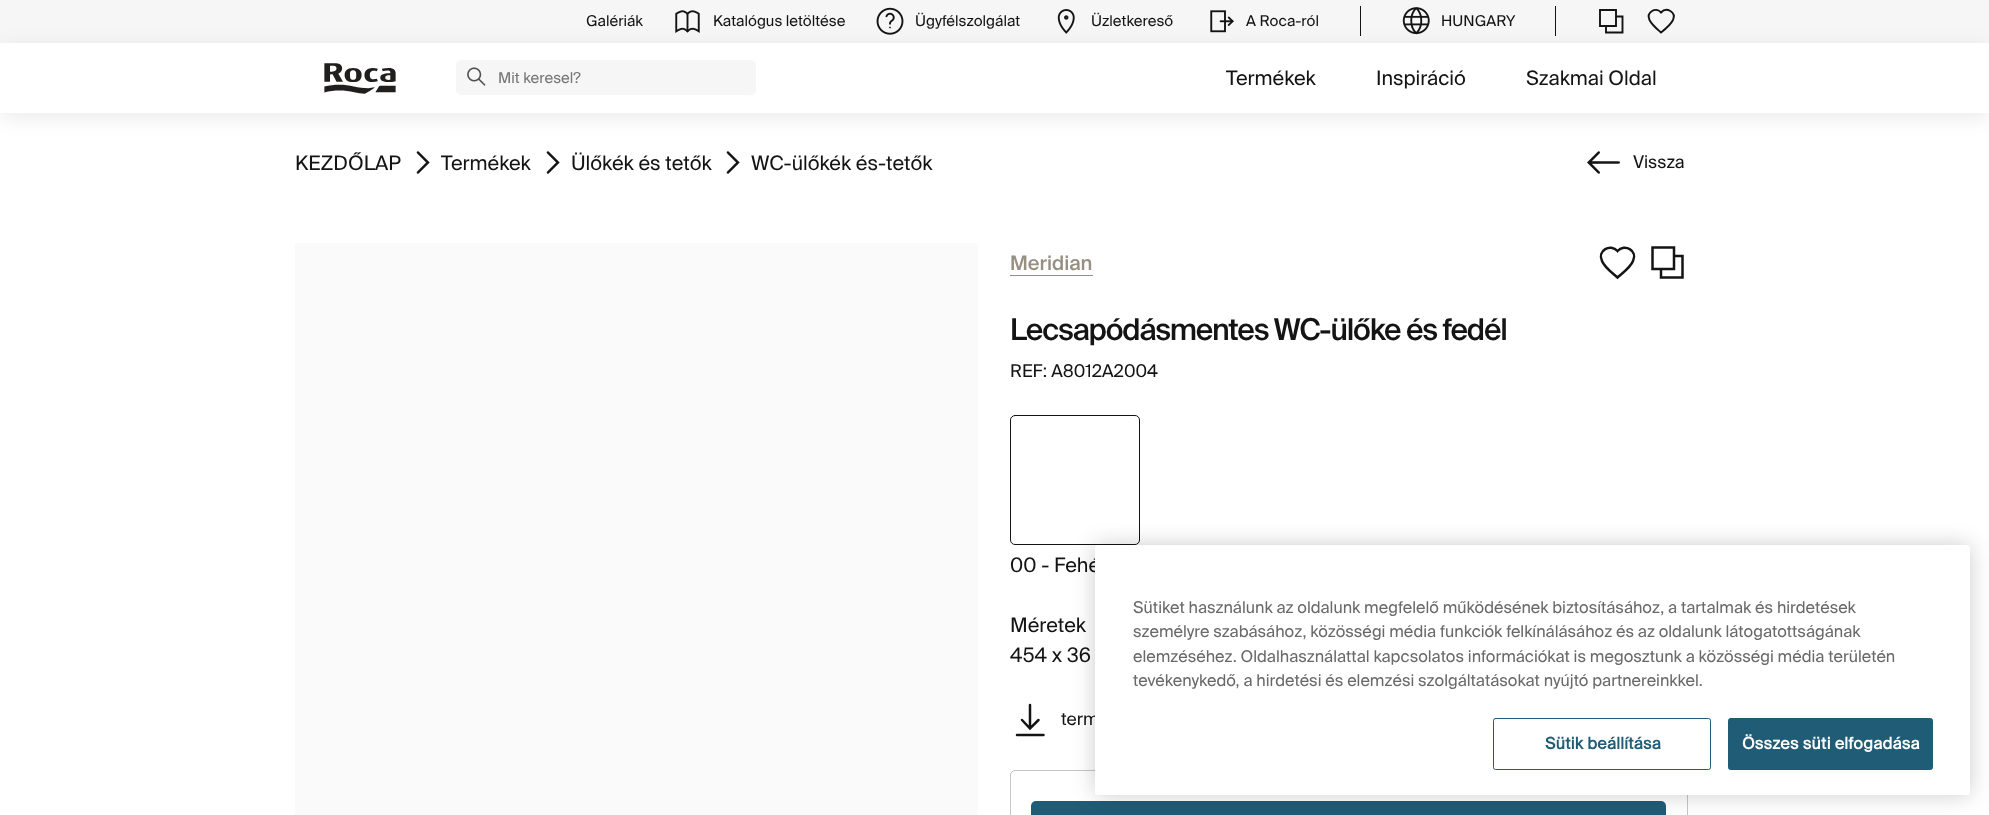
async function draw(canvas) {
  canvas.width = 1989
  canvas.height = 815
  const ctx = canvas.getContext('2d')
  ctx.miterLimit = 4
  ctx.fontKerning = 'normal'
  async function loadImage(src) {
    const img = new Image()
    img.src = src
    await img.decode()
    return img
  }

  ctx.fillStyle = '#fff'
  ctx.fillRect(0, 0, 1989, 815)
  ctx.fillStyle = '#f6f6f6'
  ctx.fillRect(0, 0, 1989, 43)
  ctx.font = '15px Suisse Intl'
  ctx.fillStyle = '#141414'
  ctx.fillText('Galériák', 586, 26)
  ctx.drawImage(await loadImage('image0.png'), 675, 10, 25, 23)
  ctx.fillText('Katalógus letöltése', 713, 26)
  ctx.drawImage(await loadImage('image1.png'), 876, 7, 28, 28)
  ctx.fillText('Ügyfélszolgálat', 915, 26)
  ctx.drawImage(await loadImage('image2.png'), 1057, 9, 18, 25)
  ctx.fillText('Üzletkereső', 1091, 26)
  ctx.drawImage(await loadImage('image3.png'), 1210, 10, 24, 23)
  ctx.fillText('A Roca-ról', 1246, 26)
  ctx.fillRect(1360, 6, 1, 30)
  ctx.drawImage(await loadImage('image4.png'), 1402, 7, 28, 28)
  ctx.fillText('HUNGARY', 1441, 26)
  ctx.fillRect(1555, 6, 1, 30)
  ctx.beginPath()
  ctx.moveTo(1616, 10)
  ctx.lineTo(1600, 10)
  ctx.lineTo(1600, 26)
  ctx.lineTo(1616, 26)
  ctx.closePath()
  ctx.moveTo(1616, 16.5)
  ctx.lineTo(1622.5, 16.5)
  ctx.lineTo(1622.5, 32.5)
  ctx.lineTo(1606, 32.5)
  ctx.lineTo(1606, 26)
  ctx.strokeStyle = '#141414'
  ctx.lineWidth = 1.9
  ctx.lineCap = 'round'
  ctx.stroke()
  ctx.beginPath()
  ctx.moveTo(1661, 32.5)
  ctx.bezierCurveTo(1657, 29, 1652, 25, 1649.5, 20)
  ctx.bezierCurveTo(1646, 12, 1656, 6.5, 1661, 12.5)
  ctx.bezierCurveTo(1666.5, 6.5, 1676.5, 12, 1673, 20)
  ctx.bezierCurveTo(1670.5, 25, 1665.5, 29, 1661, 32.5)
  ctx.closePath()
  ctx.stroke()
  ctx.drawImage(await loadImage('image5.png'), 324, 63, 72, 31)
  ctx.fillStyle = '#f6f6f6'
  ctx.beginPath()
  ctx.roundRect(456, 60, 300, 35, 5)
  ctx.fill()
  ctx.drawImage(await loadImage('image6.png'), 467, 67, 19, 19)
  ctx.save()
  ctx.beginPath()
  ctx.moveTo(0, 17)
  ctx.lineTo(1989, 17)
  ctx.lineTo(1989, 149)
  ctx.lineTo(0, 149)
  ctx.closePath()
  ctx.moveTo(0, 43)
  ctx.lineTo(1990, 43)
  ctx.lineTo(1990, 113)
  ctx.lineTo(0, 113)
  ctx.closePath()
  ctx.clip('evenodd')
  ctx.fillStyle = '#00000014'
  ctx.filter = 'blur(10px)'
  ctx.beginPath()
  ctx.rect(0, 48, 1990, 70)
  ctx.fill()
  ctx.filter = 'none'
  ctx.restore()
  ctx.fillStyle = '#757575'
  ctx.fillText('Mit keresel?', 498, 83)
  ctx.font = '20px Suisse Intl'
  ctx.fillStyle = '#141414'
  ctx.fillText('Termékek', 1226, 85)
  ctx.fillText('Inspiráció', 1376, 85)
  ctx.fillText('Szakmai Oldal', 1526, 85)
  ctx.fillText('KEZDŐLAP', 295, 170)
  ctx.drawImage(await loadImage('image7.png'), 416, 151, 14, 23)
  ctx.fillText('Termékek', 441, 170)
  ctx.drawImage(await loadImage('image7.png'), 546, 151, 14, 23)
  ctx.fillText('Ülőkék és tetők', 571, 170)
  ctx.drawImage(await loadImage('image7.png'), 726, 151, 14, 23)
  ctx.fillText('WC-ülőkék és-tetők', 751, 170)
  ctx.drawImage(await loadImage('image8.png'), 1587, 151, 33, 23)
  ctx.font = '17.5px Suisse Intl'
  ctx.fillText('Vissza', 1633, 168)
  ctx.fillStyle = '#fbfafa'
  ctx.fillRect(295, 243, 683, 572)
  ctx.font = '500 20px Suisse Intl'
  ctx.fillStyle = '#968f82'
  ctx.fillText('Meridian', 1010, 270)
  ctx.fillRect(1010, 275, 83, 1)
  ctx.beginPath()
  ctx.moveTo(1617.5, 277.5)
  ctx.bezierCurveTo(1612.5, 273, 1604.5, 267.5, 1602, 261)
  ctx.bezierCurveTo(1597, 250.5, 1610.5, 243, 1617.5, 251)
  ctx.bezierCurveTo(1624.5, 243, 1638, 250.5, 1633, 261)
  ctx.bezierCurveTo(1630.5, 267.5, 1622.5, 273, 1617.5, 277.5)
  ctx.closePath()
  ctx.lineWidth = 2.5
  ctx.stroke()
  ctx.beginPath()
  ctx.moveTo(1674, 247.5)
  ctx.lineTo(1652.5, 247.5)
  ctx.lineTo(1652.5, 269)
  ctx.lineTo(1674, 269)
  ctx.closePath()
  ctx.moveTo(1674, 256)
  ctx.lineTo(1682.5, 256)
  ctx.lineTo(1682.5, 277.5)
  ctx.lineTo(1661, 277.5)
  ctx.lineTo(1661, 269)
  ctx.stroke()
  ctx.letterSpacing = '-1.25px'
  ctx.font = '500 30px Suisse Intl'
  ctx.fillStyle = '#141414'
  ctx.fillText('Lecsapódásmentes WC-ülőke és fedél', 1010, 340)
  ctx.letterSpacing = '0px'
  ctx.font = '17.5px Suisse Intl'
  ctx.fillText('REF: A8012A2004', 1010, 377)
  ctx.beginPath()
  ctx.roundRect(1010.5, 415.5, 129, 129, 4.5)
  ctx.lineWidth = 1
  ctx.stroke()
  ctx.font = '20px Suisse Intl'
  ctx.fillText('00 - Fehé', 1010, 572)
  ctx.fillText('Méretek', 1010, 632)
  ctx.fillText('454 x 36', 1010, 662)
  ctx.beginPath()
  ctx.moveTo(1030, 705)
  ctx.lineTo(1030, 726.5)
  ctx.moveTo(1022, 720)
  ctx.lineTo(1030, 728.5)
  ctx.lineTo(1038.5, 720)
  ctx.moveTo(1043.5, 735)
  ctx.lineTo(1017, 735)
  ctx.lineWidth = 2.5
  ctx.stroke()
  ctx.font = '17.5px Suisse Intl'
  ctx.fillText('term', 1061, 725)
  ctx.beginPath()
  ctx.roundRect(1010.5, 770.5, 677, 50, 4.5)
  ctx.strokeStyle = '#c6c6c4'
  ctx.lineWidth = 1
  ctx.stroke()
  ctx.fillStyle = '#205c76'
  ctx.beginPath()
  ctx.roundRect(1031, 801, 635, 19, 5)
  ctx.fill()
  ctx.fillStyle = '#00000033'
  ctx.filter = 'blur(11px)'
  ctx.beginPath()
  ctx.roundRect(1095, 545, 875, 250, 3)
  ctx.fill()
  ctx.filter = 'none'
  ctx.fillStyle = '#fff'
  ctx.beginPath()
  ctx.roundRect(1095, 545, 875, 250, 3)
  ctx.fill()
  ctx.font = '16.25px Suisse Intl'
  ctx.fillStyle = '#696969'
  ctx.fillText('Sütiket használunk az oldalunk megfelelő működésének biztosításához, a tartalmak és hirdetések', 1133, 613)
  ctx.fillText('személyre szabásához, közösségi média funkciók felkínálásához és az oldalunk látogatottságának', 1133, 637)
  ctx.fillText('elemzéséhez. Oldalhasználattal kapcsolatos információkat is megosztunk a közösségi média területén', 1133, 662)
  ctx.fillText('tevékenykedő, a hirdetési és elemzési szolgáltatásokat nyújtó partnereinkkel.', 1133, 686)
  ctx.beginPath()
  ctx.roundRect(1493.5, 718.5, 217, 51, 2)
  ctx.strokeStyle = '#205c76'
  ctx.stroke()
  ctx.letterSpacing = '0.2px'
  ctx.font = 'bold 16.25px Suisse Intl'
  ctx.fillStyle = '#205c76'
  ctx.fillText('Sütik beállítása', 1545, 749)
  ctx.beginPath()
  ctx.roundRect(1728.5, 718.5, 204, 51, 2)
  ctx.fill()
  ctx.stroke()
  ctx.fillStyle = '#fff'
  ctx.fillText('Összes süti elfogadása', 1742, 749)
}

draw(document.querySelector('canvas'))
